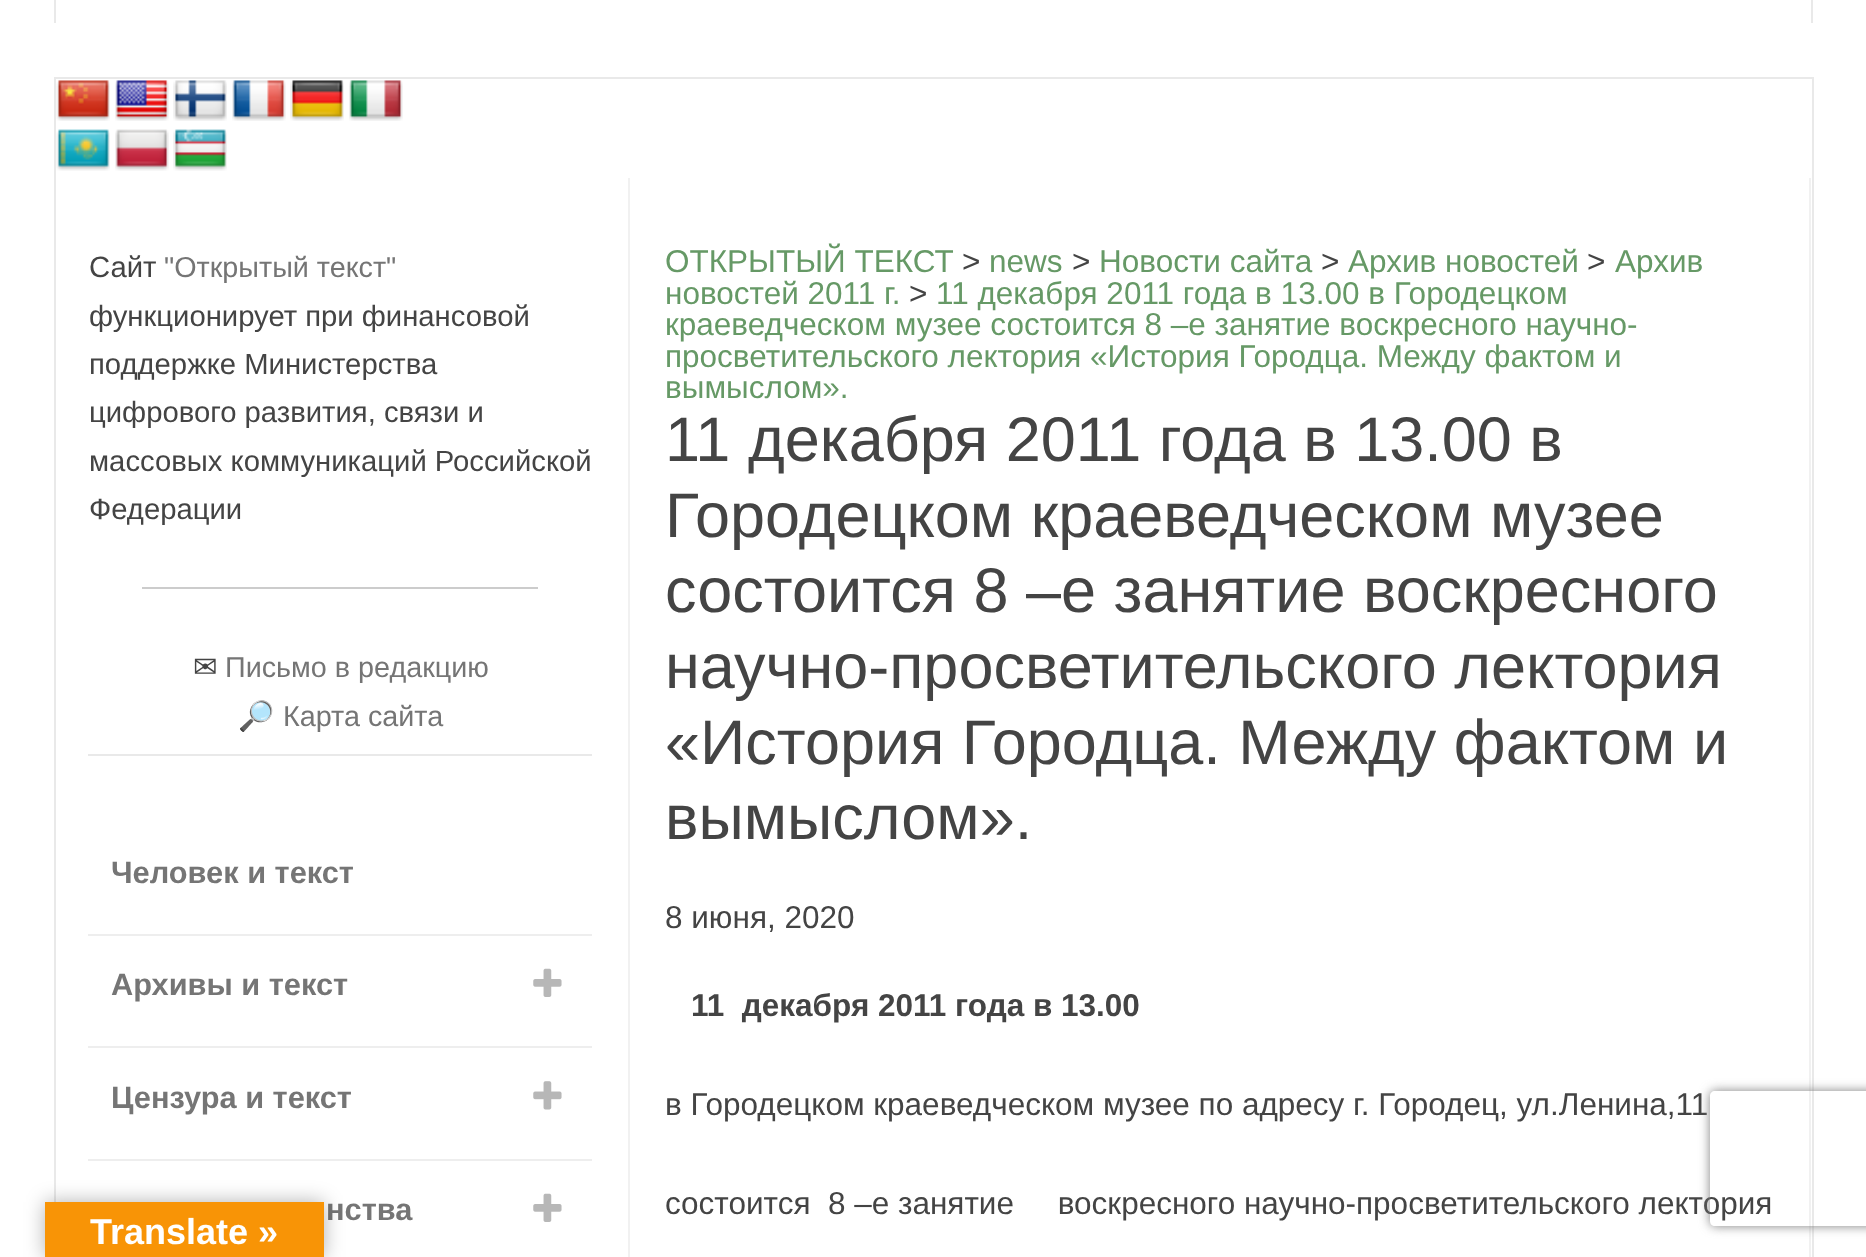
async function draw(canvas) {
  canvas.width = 1866
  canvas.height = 1257
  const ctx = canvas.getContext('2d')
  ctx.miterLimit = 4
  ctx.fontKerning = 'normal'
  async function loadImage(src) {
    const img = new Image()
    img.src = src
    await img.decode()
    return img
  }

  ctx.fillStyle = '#fff'
  ctx.fillRect(0, 0, 1866, 1257)
  ctx.fillStyle = '#e9e9e9'
  ctx.fillRect(1811, 0, 2, 23)
  ctx.fillRect(54, 0, 2, 23)
  ctx.strokeStyle = '#e9e9e9'
  ctx.lineWidth = 2
  ctx.strokeRect(55, 78, 1758, 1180)
  ctx.drawImage(await loadImage('image0.png'), 56, 80, 54, 41)
  ctx.drawImage(await loadImage('image1.png'), 115, 80, 54, 41)
  ctx.drawImage(await loadImage('image2.png'), 173, 80, 54, 41)
  ctx.drawImage(await loadImage('image3.png'), 232, 80, 54, 41)
  ctx.drawImage(await loadImage('image4.png'), 290, 80, 54, 41)
  ctx.drawImage(await loadImage('image5.png'), 349, 80, 54, 41)
  ctx.drawImage(await loadImage('image6.png'), 56, 129, 54, 42)
  ctx.drawImage(await loadImage('image7.png'), 115, 129, 54, 42)
  ctx.drawImage(await loadImage('image8.png'), 173, 129, 54, 42)
  ctx.fillRect(88, 754, 504, 2)
  ctx.font = '29.25px Liberation Sans'
  ctx.fillStyle = '#444'
  ctx.fillText('Сайт', 89, 277)
  ctx.font = '28.75px Liberation Sans'
  ctx.fillStyle = '#757575'
  ctx.fillText('"Открытый текст"', 164, 277)
  ctx.font = '29.25px Liberation Sans'
  ctx.fillStyle = '#444'
  ctx.fillText('функционирует при финансовой', 89, 326)
  ctx.fillText('поддержке Министерства', 89, 374)
  ctx.fillText('цифрового развития, связи и', 89, 422)
  ctx.fillText('массовых коммуникаций Российской', 89, 471)
  ctx.fillText('Федерации', 89, 519)
  ctx.fillStyle = '#ccc'
  ctx.fillRect(142, 587, 396, 2)
  ctx.font = '29.25px DejaVu Sans'
  ctx.fillStyle = '#444'
  ctx.fillText('✉', 193, 677)
  ctx.font = '28.75px Liberation Sans'
  ctx.fillStyle = '#757575'
  ctx.fillText('Письмо в редакцию', 225, 677)
  ctx.font = '29.25px Noto Color Emoji'
  ctx.fillStyle = '#444'
  ctx.fillText('🔎', 238, 726)
  ctx.font = '28.75px Liberation Sans'
  ctx.fillStyle = '#757575'
  ctx.fillText('Карта сайта', 283, 726)
  ctx.fillStyle = '#eee'
  ctx.fillRect(88, 934, 504, 2)
  ctx.font = 'bold 30.75px Liberation Sans'
  ctx.fillStyle = '#757575'
  ctx.fillText('Человек и текст', 111, 883)
  ctx.fillStyle = '#eee'
  ctx.fillRect(88, 1046, 504, 2)
  ctx.fillStyle = '#757575'
  ctx.fillText('Архивы и текст', 111, 995)
  ctx.drawImage(await loadImage('image9.png'), 533, 968, 29, 29)
  ctx.fillStyle = '#eee'
  ctx.fillRect(88, 1159, 504, 2)
  ctx.fillStyle = '#757575'
  ctx.fillText('Цензура и текст', 111, 1108)
  ctx.drawImage(await loadImage('image10.png'), 533, 1081, 29, 29)
  ctx.fillText('нства', 326, 1220)
  ctx.drawImage(await loadImage('image9.png'), 533, 1193, 29, 29)
  ctx.fillStyle = '#f1f1f1'
  ctx.fillRect(1809, 178, 2, 1079)
  ctx.fillRect(628, 178, 2, 1079)
  ctx.font = '31.5px Liberation Sans'
  ctx.fillStyle = '#696'
  ctx.fillText('ОТКРЫТЫЙ ТЕКСТ', 665, 272)
  ctx.fillStyle = '#444'
  ctx.fillText('>', 962, 272)
  ctx.fillStyle = '#696'
  ctx.fillText('news', 989, 272)
  ctx.fillStyle = '#444'
  ctx.fillText('>', 1072, 272)
  ctx.fillStyle = '#696'
  ctx.fillText('Новости сайта', 1099, 272)
  ctx.fillStyle = '#444'
  ctx.fillText('>', 1321, 272)
  ctx.fillStyle = '#696'
  ctx.fillText('Архив новостей', 1348, 272)
  ctx.fillStyle = '#444'
  ctx.fillText('>', 1587, 272)
  ctx.fillStyle = '#696'
  ctx.fillText('Архив', 1615, 272)
  ctx.fillText('новостей 2011 г.', 665, 304)
  ctx.fillStyle = '#444'
  ctx.fillText('>', 909, 304)
  ctx.fillStyle = '#696'
  ctx.fillText('11 декабря 2011 года в 13.00 в Городецком', 936, 304)
  ctx.fillText('краеведческом музее состоится 8 –е занятие воскресного научно-', 665, 335)
  ctx.fillText('просветительского лектория «История Городца. Между фактом и', 665, 367)
  ctx.fillText('вымыслом».', 665, 398)
  ctx.font = '63px Liberation Sans'
  ctx.fillStyle = '#444'
  ctx.fillText('11 декабря 2011 года в 13.00 в', 665, 461)
  ctx.fillText('Городецком краеведческом музее', 665, 537)
  ctx.fillText('состоится 8 –е занятие воскресного', 665, 612)
  ctx.fillText('научно-просветительского лектория', 665, 688)
  ctx.fillText('«История Городца. Между фактом и', 665, 764)
  ctx.fillText('вымыслом».', 665, 839)
  ctx.font = '31.5px Liberation Sans'
  ctx.fillText('8 июня, 2020', 665, 928)
  ctx.font = 'bold 31.5px Liberation Sans'
  ctx.fillText('11  декабря 2011 года в 13.00', 691, 1016)
  ctx.font = '31.5px Liberation Sans'
  ctx.fillText('в Городецком краеведческом музее по адресу г. Городец, ул.Ленина,11', 665, 1115)
  ctx.fillText('состоится  8 –е занятие     воскресного научно-просветительского лектория', 665, 1214)
  ctx.save()
  ctx.beginPath()
  ctx.moveTo(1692, 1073)
  ctx.lineTo(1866, 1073)
  ctx.lineTo(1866, 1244)
  ctx.lineTo(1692, 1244)
  ctx.closePath()
  ctx.moveTo(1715, 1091)
  ctx.lineTo(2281, 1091)
  ctx.bezierCurveTo(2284, 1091, 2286, 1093, 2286, 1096)
  ctx.lineTo(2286, 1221)
  ctx.bezierCurveTo(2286, 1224, 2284, 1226, 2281, 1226)
  ctx.lineTo(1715, 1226)
  ctx.bezierCurveTo(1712, 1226, 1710, 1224, 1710, 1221)
  ctx.lineTo(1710, 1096)
  ctx.bezierCurveTo(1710, 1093, 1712, 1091, 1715, 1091)
  ctx.closePath()
  ctx.clip('evenodd')
  ctx.fillStyle = '#808080'
  ctx.filter = 'blur(5.5px)'
  ctx.beginPath()
  ctx.roundRect(1710, 1091, 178, 135, 5)
  ctx.fill()
  ctx.filter = 'none'
  ctx.restore()
  ctx.fillStyle = '#0000004d'
  ctx.filter = 'blur(10px)'
  ctx.beginPath()
  ctx.rect(45, 1202, 279, 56)
  ctx.fill()
  ctx.filter = 'none'
  ctx.fillStyle = '#f89406'
  ctx.fillRect(45, 1202, 279, 55)
  ctx.font = 'bold 36px Liberation Sans'
  ctx.fillStyle = '#fff'
  ctx.fillText('Translate »', 90, 1244)
}

draw(document.querySelector('canvas'))
